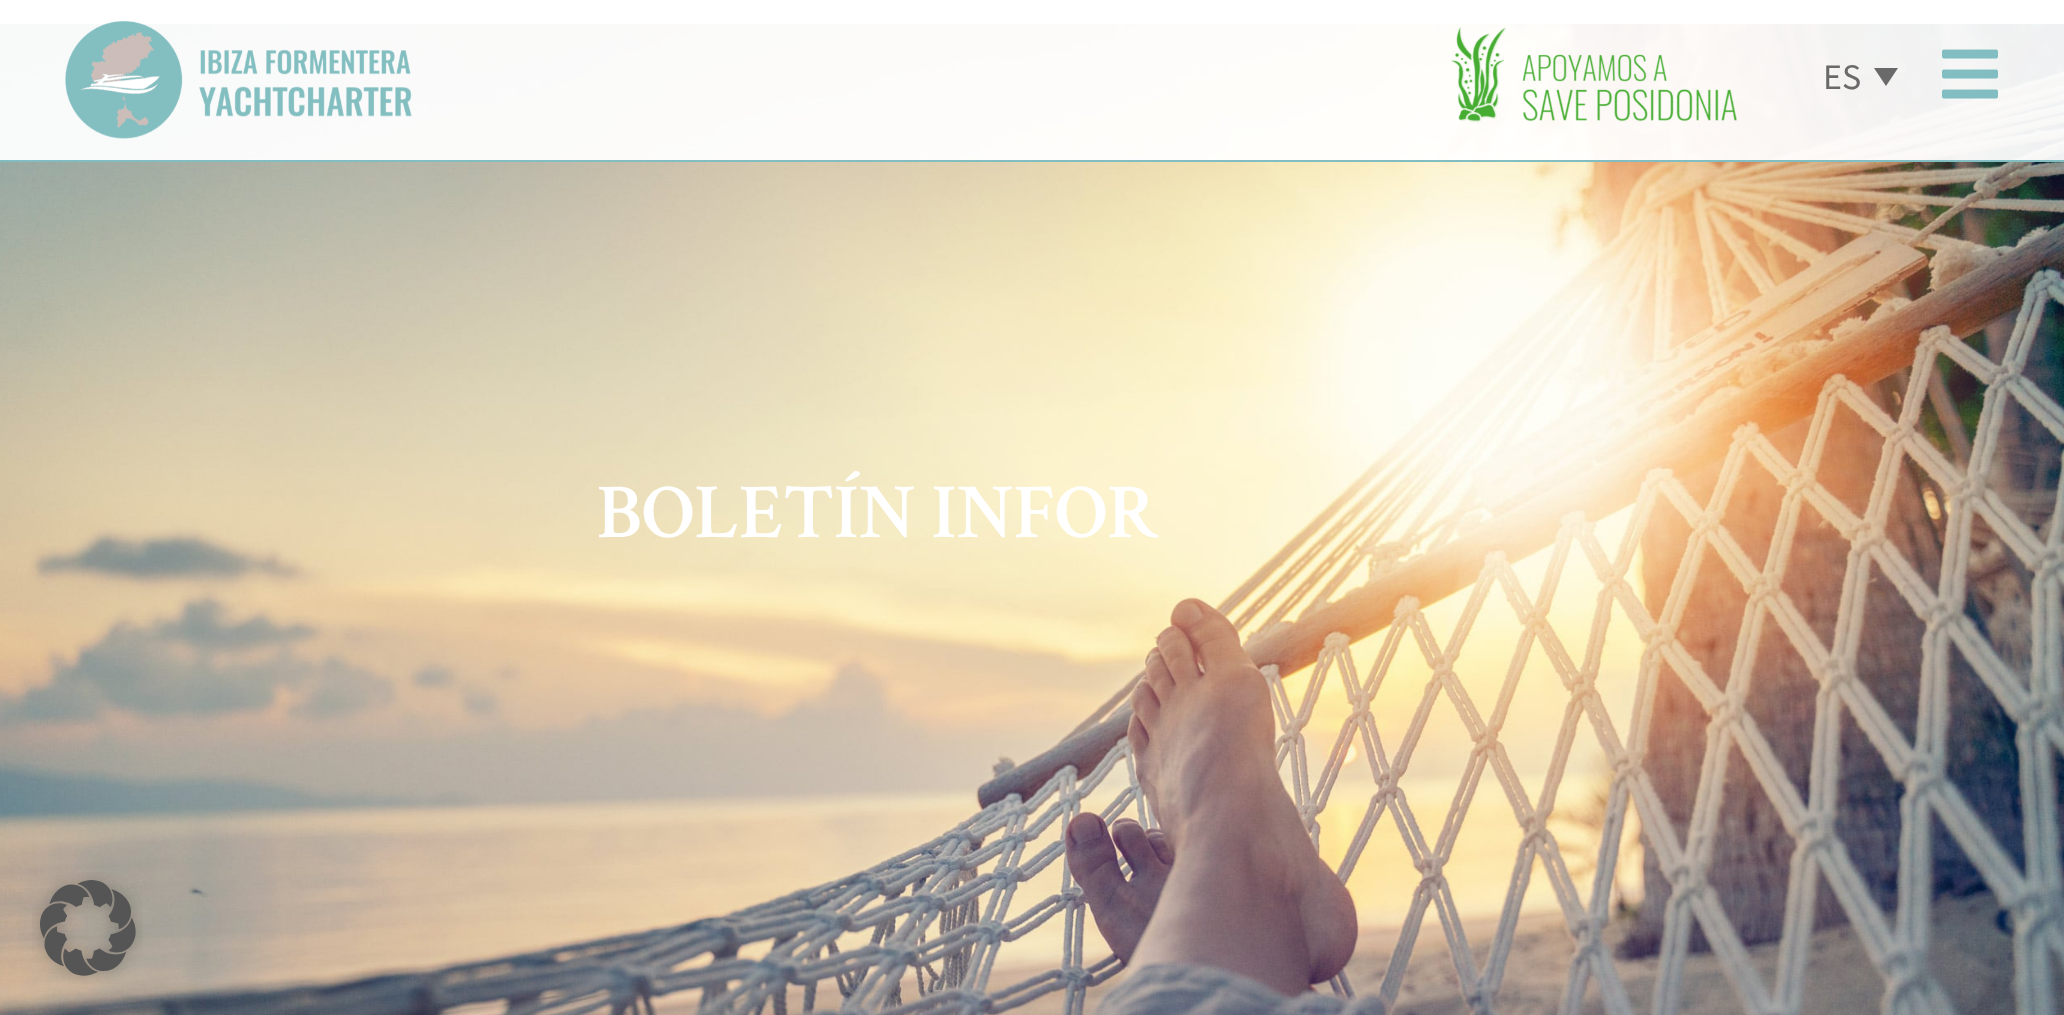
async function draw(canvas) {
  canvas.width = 2064
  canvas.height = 1015
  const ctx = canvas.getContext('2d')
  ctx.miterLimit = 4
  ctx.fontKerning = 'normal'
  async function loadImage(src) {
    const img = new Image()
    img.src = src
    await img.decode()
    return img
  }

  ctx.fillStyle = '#fff'
  ctx.fillRect(0, 0, 2064, 1015)
  ctx.drawImage(await loadImage('image3.png'), 0, 24, 2064, 991)
  ctx.fillStyle = '#fffffff0'
  ctx.fillRect(0, 24, 2064, 136)
  ctx.fillStyle = '#82bec1'
  ctx.fillRect(0, 160, 2064, 2)
  ctx.drawImage(await loadImage('image0.png'), 65, 20, 347, 119)
  ctx.drawImage(await loadImage('image1.png'), 1451, 26, 286, 97)
  ctx.font = '36px Source Sans Pro'
  ctx.fillStyle = '#6a6a6a'
  ctx.fillText('ES', 1823, 89)
  ctx.beginPath()
  ctx.moveTo(1874, 68)
  ctx.lineTo(1898, 68)
  ctx.lineTo(1886, 86)
  ctx.closePath()
  ctx.fill()
  ctx.drawImage(await loadImage('image2.png'), 1942, 49, 56, 50)
  ctx.font = '600 78px Crimson Text'
  ctx.fillStyle = '#fff'
  ctx.fillText('BOLETÍN INFOR', 597, 537)
  ctx.drawImage(await loadImage('image4.png'), 32, 872, 111, 112)
}

draw(document.querySelector('canvas'))
